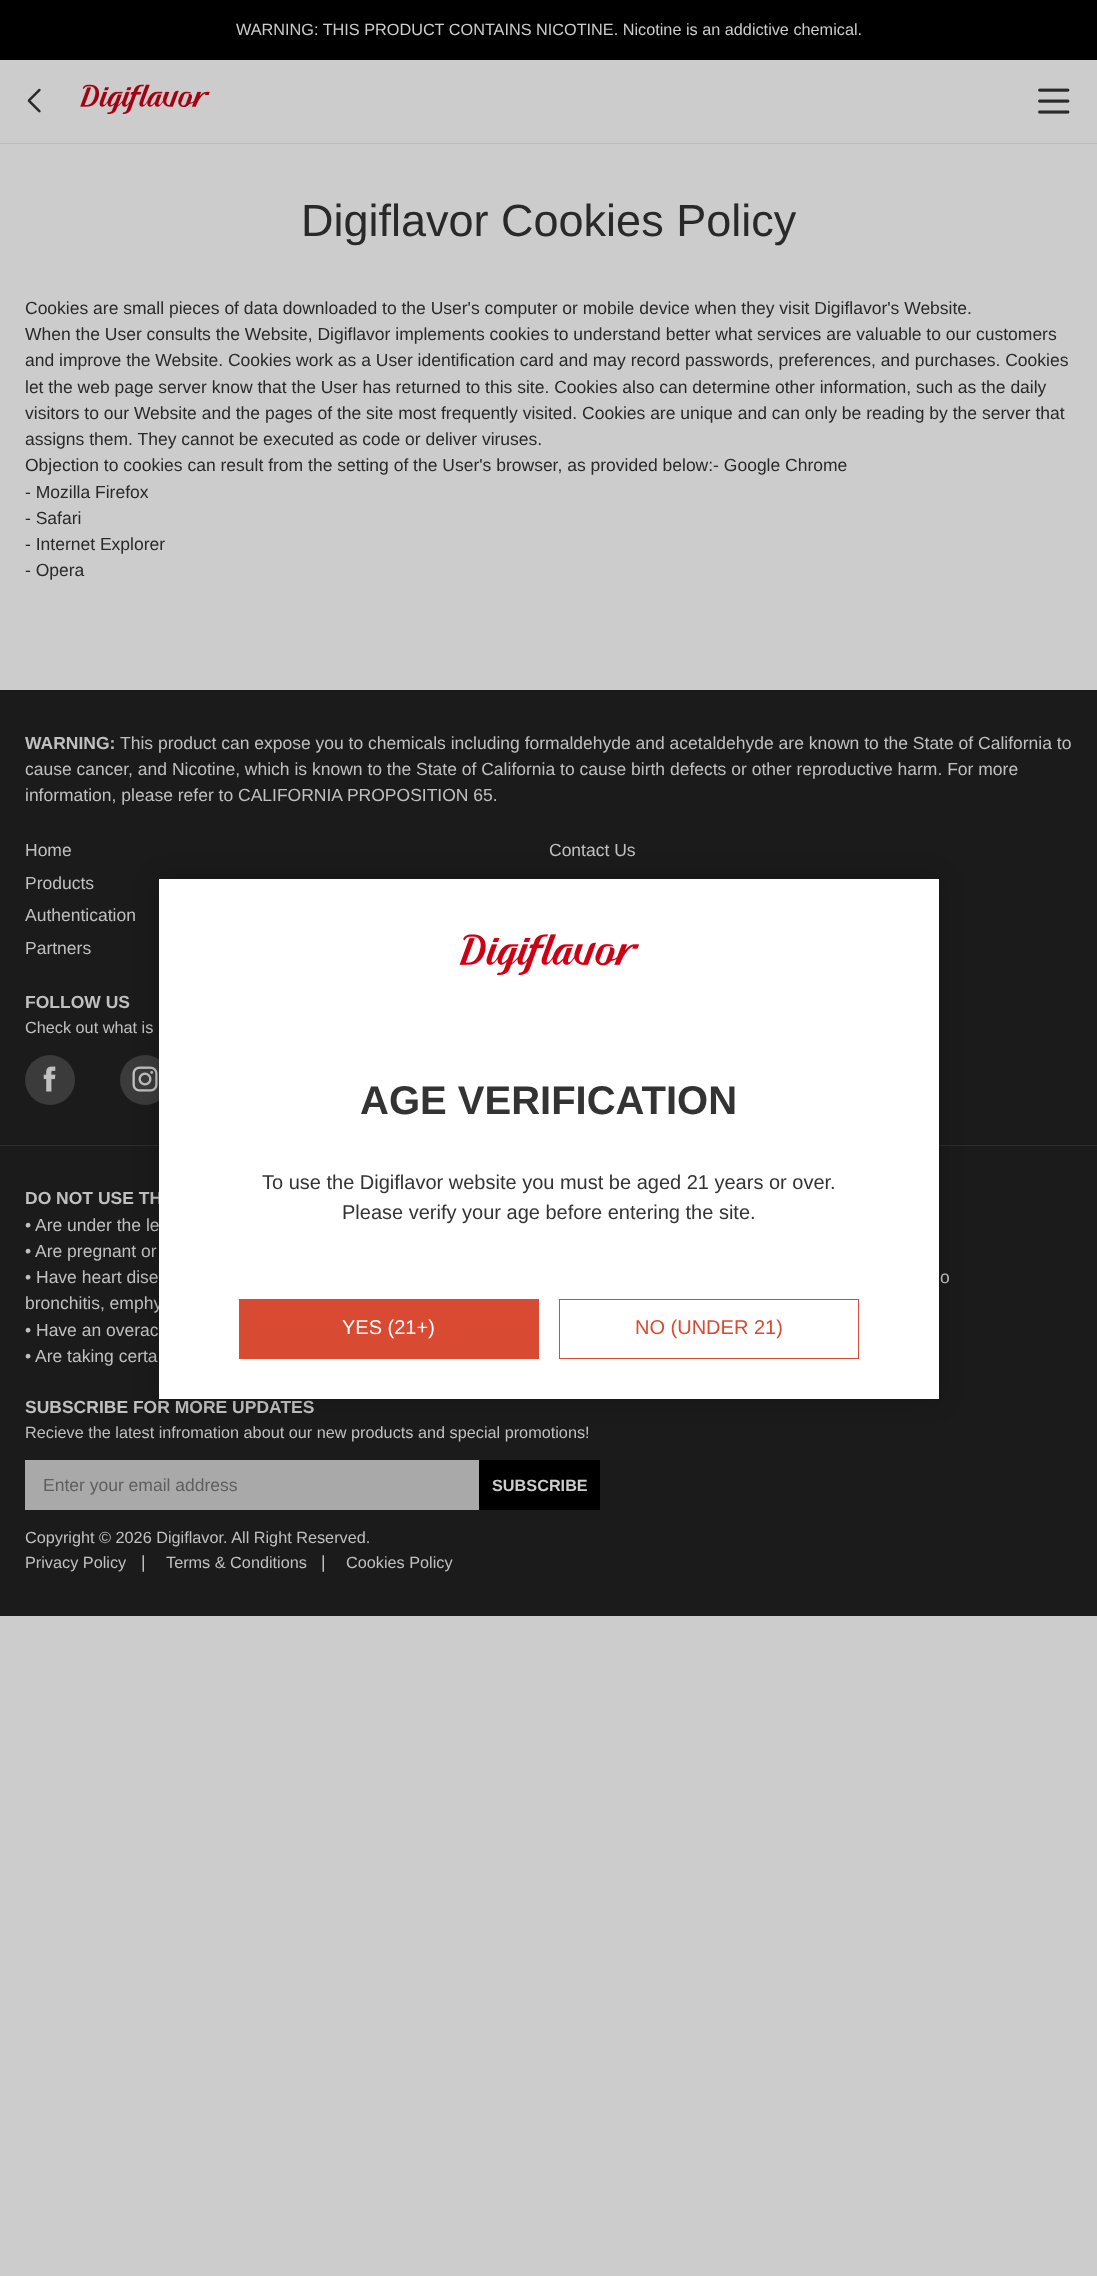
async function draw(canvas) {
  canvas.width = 1097
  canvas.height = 2276
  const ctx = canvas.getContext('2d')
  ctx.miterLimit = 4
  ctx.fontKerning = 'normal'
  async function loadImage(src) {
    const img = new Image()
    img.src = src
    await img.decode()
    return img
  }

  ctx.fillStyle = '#ccc'
  ctx.fillRect(0, 0, 1097, 2276)
  ctx.fillStyle = '#000'
  ctx.fillRect(0, 0, 1097, 60)
  ctx.font = '16.25px Liberation Sans'
  ctx.fillStyle = '#ccc'
  ctx.fillText('WARNING: THIS PRODUCT CONTAINS NICOTINE. Nicotine is an addictive chemical.', 236, 35)
  ctx.fillStyle = '#bcbcbc'
  ctx.beginPath()
  ctx.moveTo(0, 142)
  ctx.lineTo(0, 144)
  ctx.lineTo(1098, 144)
  ctx.lineTo(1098, 61)
  ctx.lineTo(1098, 142)
  ctx.closePath()
  ctx.fill()
  ctx.fillStyle = '#ccc'
  ctx.fillRect(0, 142, 1097, 1)
  ctx.drawImage(await loadImage('image0.png'), 27, 88, 14, 25)
  ctx.drawImage(await loadImage('image1.png'), 80, 84, 130, 30)
  ctx.drawImage(await loadImage('image2.png'), 1038, 88, 32, 26)
  ctx.font = '45px Liberation Sans'
  ctx.fillStyle = '#292929'
  ctx.fillText('Digiflavor Cookies Policy', 301, 236)
  ctx.font = '17.5px Liberation Sans'
  ctx.fillText('Cookies are small pieces of data downloaded to the User\'s computer or mobile device when they visit Digiflavor\'s Website.', 25, 314)
  ctx.fillText('When the User consults the Website, Digiflavor implements cookies to understand better what services are valuable to our customers', 25, 340)
  ctx.fillText('and improve the Website. Cookies work as a User identification card and may record passwords, preferences, and purchases. Cookies', 25, 366)
  ctx.fillText('let the web page server know that the User has returned to this site. Cookies also can determine other information, such as the daily', 25, 393)
  ctx.fillText('visitors to our Website and the pages of the site most frequently visited. Cookies are unique and can only be reading by the server that', 25, 419)
  ctx.fillText('assigns them. They cannot be executed as code or deliver viruses.', 25, 445)
  ctx.fillText('Objection to cookies can result from the setting of the User\'s browser, as provided below:- Google Chrome', 25, 471)
  ctx.fillText('- Mozilla Firefox', 25, 498)
  ctx.fillText('- Safari', 25, 524)
  ctx.fillText('- Internet Explorer', 25, 550)
  ctx.fillText('- Opera', 25, 576)
  ctx.fillStyle = '#1b1b1b'
  ctx.fillRect(0, 690, 1097, 926)
  ctx.font = 'bold 17.5px Liberation Sans'
  ctx.fillStyle = '#c0c0c0'
  ctx.fillText('WARNING:', 25, 749)
  ctx.font = '17.5px Liberation Sans'
  ctx.fillText('This product can expose you to chemicals including formaldehyde and acetaldehyde are known to the State of California to', 120, 749)
  ctx.fillText('cause cancer, and Nicotine, which is known to the State of California to cause birth defects or other reproductive harm. For more', 25, 775)
  ctx.fillText('information, please refer to CALIFORNIA PROPOSITION 65.', 25, 801)
  ctx.fillText('Home', 25, 856)
  ctx.fillText('Products', 25, 889)
  ctx.fillText('Authentication', 25, 921)
  ctx.fillText('Partners', 25, 954)
  ctx.fillText('Contact Us', 549, 856)
  ctx.font = 'bold 17.5px Liberation Sans'
  ctx.fillText('FOLLOW US', 25, 1008)
  ctx.font = '16.25px Liberation Sans'
  ctx.fillText('Check out what is', 25, 1033)
  ctx.fillStyle = '#3b3b3b'
  ctx.beginPath()
  ctx.arc(50, 1080, 25, 0, 2 * Math.PI)
  ctx.fill()
  ctx.drawImage(await loadImage('image3.png'), 43, 1066, 13, 26)
  ctx.beginPath()
  ctx.arc(145, 1080, 25, 0, 2 * Math.PI)
  ctx.fill()
  ctx.drawImage(await loadImage('image4.png'), 132, 1066, 26, 26)
  ctx.fillStyle = '#2d2d2d'
  ctx.fillRect(0, 1145, 1097, 1)
  ctx.font = 'bold 17.5px Liberation Sans'
  ctx.fillStyle = '#c0c0c0'
  ctx.fillText('DO NOT USE TH', 25, 1204)
  ctx.font = '17.5px Liberation Sans'
  ctx.fillText('• Are under the le', 25, 1231)
  ctx.fillText('• Are pregnant or', 25, 1257)
  ctx.fillText('• Have heart dise', 25, 1283)
  ctx.fillText('o', 940, 1283)
  ctx.fillText('bronchitis, emphy', 25, 1309)
  ctx.fillText('• Have an overac', 25, 1336)
  ctx.fillText('• Are taking certa', 25, 1362)
  ctx.font = 'bold 17.5px Liberation Sans'
  ctx.fillText('SUBSCRIBE FOR MORE UPDATES', 25, 1413)
  ctx.font = '16.25px Liberation Sans'
  ctx.fillText('Recieve the latest infromation about our new products and special promotions!', 25, 1438)
  ctx.fillStyle = '#a9a9a9'
  ctx.fillRect(25, 1460, 454, 50)
  ctx.font = '17.5px Liberation Sans'
  ctx.fillStyle = '#5e5e5e'
  ctx.fillText('Enter your email address', 43, 1491)
  ctx.fillStyle = '#000'
  ctx.fillRect(479, 1460, 121, 50)
  ctx.font = 'bold 16.25px Liberation Sans'
  ctx.fillStyle = '#ccc'
  ctx.fillText('SUBSCRIBE', 492, 1491)
  ctx.font = '16.25px Liberation Sans'
  ctx.fillStyle = '#c0c0c0'
  ctx.fillText('Copyright © 2026 Digiflavor. All Right Reserved.', 25, 1543)
  ctx.fillText('Privacy Policy', 25, 1568)
  ctx.font = '17.5px Liberation Sans'
  ctx.fillText('|', 141, 1568)
  ctx.font = '16.25px Liberation Sans'
  ctx.fillText('Terms & Conditions', 166, 1568)
  ctx.font = '17.5px Liberation Sans'
  ctx.fillText('|', 321, 1568)
  ctx.font = '16.25px Liberation Sans'
  ctx.fillText('Cookies Policy', 346, 1568)
  ctx.fillStyle = '#00000033'
  ctx.filter = 'blur(12.5px)'
  ctx.beginPath()
  ctx.rect(159, 879, 780, 520)
  ctx.fill()
  ctx.filter = 'none'
  ctx.fillStyle = '#fff'
  ctx.fillRect(159, 879, 780, 520)
  ctx.drawImage(await loadImage('image5.png'), 459, 934, 180, 41)
  ctx.font = 'bold 40px Liberation Sans'
  ctx.fillStyle = '#333'
  ctx.fillText('AGE VERIFICATION', 360, 1114)
  ctx.font = '20px Liberation Sans'
  ctx.fillText('To use the Digiflavor website you must be aged 21 years or over.', 262, 1189)
  ctx.fillText('Please verify your age before entering the site.', 342, 1219)
  ctx.fillStyle = '#d94a32'
  ctx.fillRect(239, 1299, 300, 60)
  ctx.fillStyle = '#fff'
  ctx.fillText('YES (21+)', 342, 1334)
  ctx.strokeStyle = '#d94a32'
  ctx.strokeRect(559.5, 1299.5, 299, 59)
  ctx.fillStyle = '#d94a32'
  ctx.fillText('NO (UNDER 21)', 635, 1334)
}

draw(document.querySelector('canvas'))
